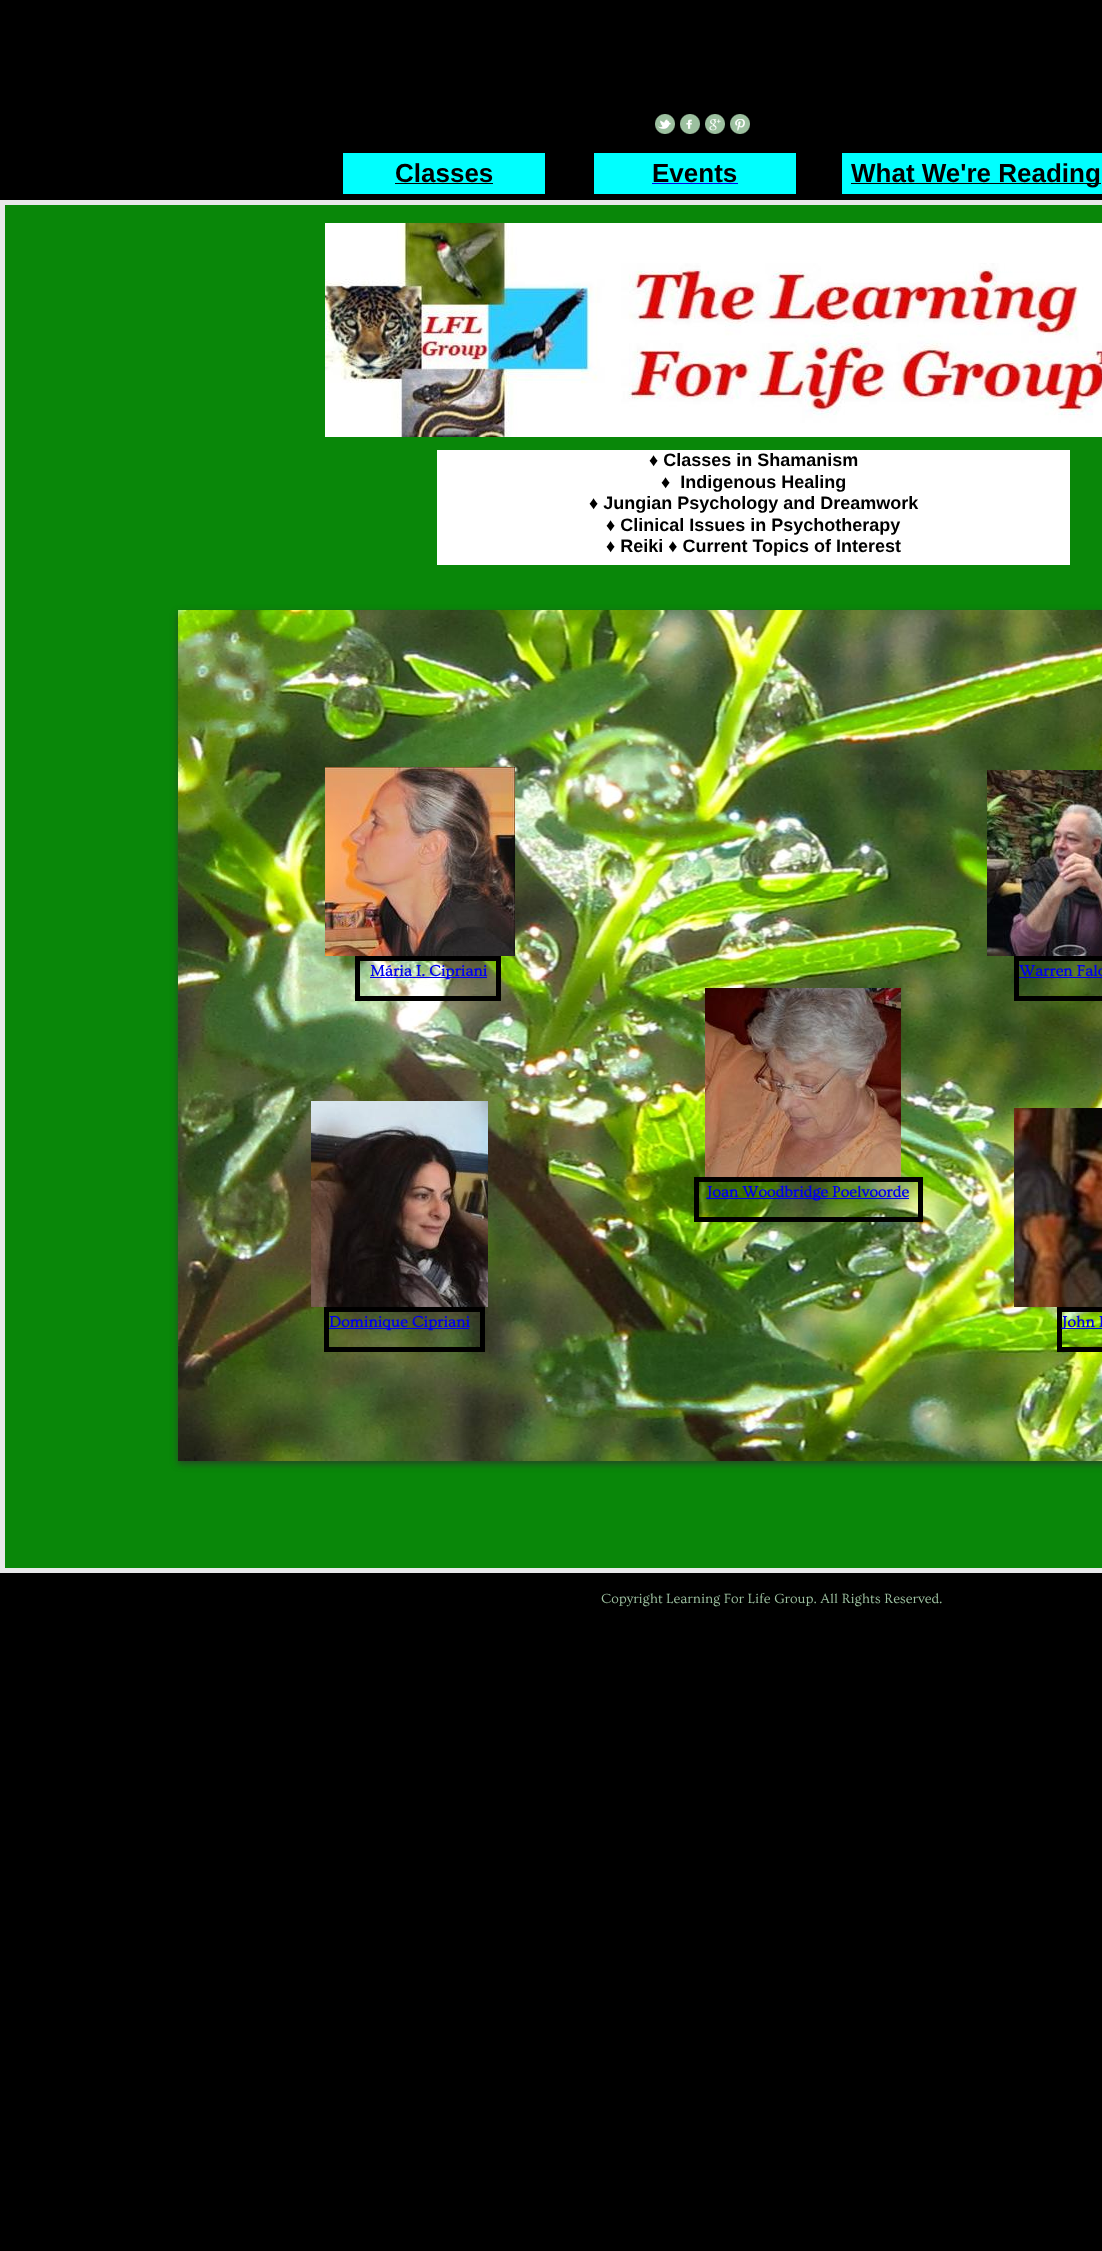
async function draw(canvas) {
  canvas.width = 1102
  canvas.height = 2251
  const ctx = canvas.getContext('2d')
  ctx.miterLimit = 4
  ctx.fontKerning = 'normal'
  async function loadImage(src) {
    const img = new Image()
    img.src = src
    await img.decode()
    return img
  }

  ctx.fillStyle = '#000'
  ctx.fillRect(0, 0, 1102, 2251)
  ctx.fillStyle = '#098709'
  ctx.beginPath()
  ctx.rect(2.5, 202.5, 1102, 1368)
  ctx.fill()
  ctx.strokeStyle = '#e8e8ea'
  ctx.lineWidth = 5
  ctx.stroke()
  ctx.drawImage(await loadImage('image0.png'), 655, 114, 20, 20)
  ctx.drawImage(await loadImage('image1.png'), 680, 114, 20, 20)
  ctx.drawImage(await loadImage('image2.png'), 705, 114, 20, 20)
  ctx.drawImage(await loadImage('image3.png'), 730, 114, 20, 20)
  ctx.fillStyle = '#0ff'
  ctx.fillRect(343, 153, 202, 41)
  ctx.font = 'bold 26px Liberation Sans'
  ctx.fillStyle = '#000'
  ctx.fillText('Classes', 395, 182)
  ctx.fillRect(395, 183, 98, 1)
  ctx.fillStyle = '#0ff'
  ctx.fillRect(594, 153, 202, 41)
  ctx.fillStyle = '#000'
  ctx.fillText('Events', 652, 182)
  ctx.fillStyle = '#00e'
  ctx.fillRect(652, 183, 86, 1)
  ctx.fillStyle = '#0ff'
  ctx.fillRect(842, 153, 260, 41)
  ctx.fillStyle = '#000'
  ctx.fillRect(851, 183, 250, 1)
  ctx.fillText('What We\'re Reading', 851, 182)
  ctx.drawImage(await loadImage('image4.png'), 325, 223, 777, 214)
  ctx.fillStyle = '#fff'
  ctx.fillRect(437, 450, 633, 115)
  ctx.font = 'bold 18px Liberation Sans'
  ctx.fillStyle = '#000'
  ctx.fillText('♦ Classes in Shamanism', 649, 466)
  ctx.fillText('♦  Indigenous Healing', 661, 488)
  ctx.fillText('♦ Jungian Psychology and Dreamwork', 589, 509)
  ctx.fillText('♦ Clinical Issues in Psychotherapy', 606, 531)
  ctx.fillText('♦ Reiki ♦ Current Topics of Interest', 606, 552)
  ctx.fillStyle = '#323232bf'
  ctx.filter = 'blur(3.5px)'
  ctx.beginPath()
  ctx.rect(178, 613, 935, 851)
  ctx.fill()
  ctx.filter = 'none'
  ctx.drawImage(await loadImage('image5.png'), 178, 610, 924, 851)
  ctx.drawImage(await loadImage('image6.png'), 325, 767, 190, 189)
  ctx.drawImage(await loadImage('image7.png'), 987, 770, 115, 186)
  ctx.strokeStyle = '#000'
  ctx.strokeRect(357.5, 958.5, 141, 40)
  ctx.fillStyle = '#00e'
  ctx.fillRect(370, 977, 117, 1)
  ctx.font = 'bold 16px Ovo'
  ctx.fillText('Mária I. Cipriani', 370, 976)
  ctx.strokeRect(1016.5, 958.5, 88, 40)
  ctx.fillText('Warren Falc', 1019, 976)
  ctx.fillRect(1019, 977, 83, 1)
  ctx.drawImage(await loadImage('image8.png'), 311, 1101, 177, 206)
  ctx.drawImage(await loadImage('image9.png'), 705, 988, 196, 189)
  ctx.drawImage(await loadImage('image10.png'), 1014, 1108, 88, 199)
  ctx.strokeRect(696.5, 1179.5, 224, 40)
  ctx.fillRect(707, 1198, 202, 1)
  ctx.fillText('Joan Woodbridge Poelvoorde', 707, 1197)
  ctx.strokeRect(326.5, 1309.5, 156, 40)
  ctx.fillRect(329, 1328, 140, 1)
  ctx.fillText('Dominique Cipriani', 329, 1327)
  ctx.strokeRect(1059.5, 1309.5, 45, 40)
  ctx.fillRect(1062, 1328, 40, 1)
  ctx.fillText('John L', 1062, 1327)
  ctx.font = '14px Ovo'
  ctx.fillStyle = '#9cc09f'
  ctx.fillText('Copyright', 601, 1603)
  ctx.fillText('Learning For Life Group. All Rights Reserved.', 666, 1603)
}

draw(document.querySelector('canvas'))
